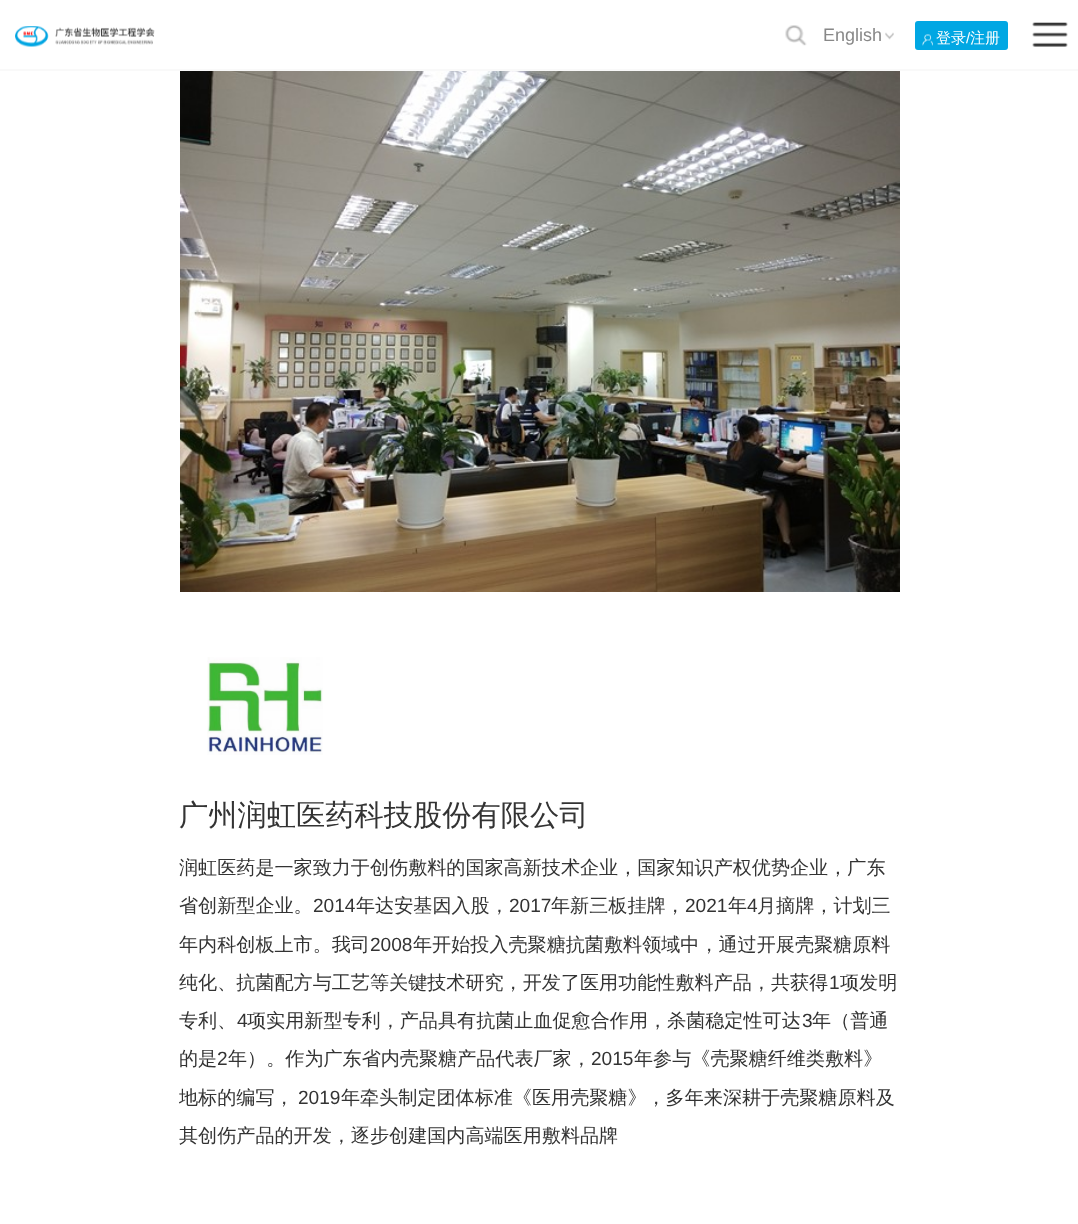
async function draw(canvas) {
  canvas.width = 1078
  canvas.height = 1224
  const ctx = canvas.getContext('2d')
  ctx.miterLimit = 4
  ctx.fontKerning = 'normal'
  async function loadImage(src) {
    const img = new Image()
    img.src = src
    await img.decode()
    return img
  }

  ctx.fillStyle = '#fff'
  ctx.fillRect(0, 0, 1078, 1224)
  ctx.fillStyle = '#f9f9f9'
  ctx.fillRect(0, 69, 1078, 2)
  ctx.drawImage(await loadImage('image0.png'), 15, 26, 140, 21)
  ctx.drawImage(await loadImage('image1.png'), 785, 25, 22, 21)
  ctx.font = '18px Liberation Sans'
  ctx.fillStyle = '#888'
  ctx.fillText('English', 823, 41)
  ctx.drawImage(await loadImage('image2.png'), 885, 32, 9, 8)
  ctx.fillStyle = '#01a7e3'
  ctx.beginPath()
  ctx.roundRect(915, 21, 93, 29, 3)
  ctx.fill()
  ctx.drawImage(await loadImage('image3.png'), 922, 34, 11, 12)
  ctx.font = '500 15px WenQuanYi Zen Hei'
  ctx.fillStyle = '#fff'
  ctx.fillText('登录', 936, 43)
  ctx.font = '15px Liberation Sans'
  ctx.fillText('/', 966, 43)
  ctx.font = '500 15px WenQuanYi Zen Hei'
  ctx.fillText('注册', 970, 43)
  ctx.drawImage(await loadImage('image4.png'), 1032, 22, 36, 25)
  ctx.drawImage(await loadImage('image5.png'), 180, 71, 720, 521)
  ctx.drawImage(await loadImage('image6.png'), 207, 657, 116, 98)
  ctx.font = '500 29.25px WenQuanYi Zen Hei'
  ctx.fillStyle = '#333'
  ctx.fillText('广州润虹医药科技股份有限公司', 179, 825)
  ctx.font = '500 19.1px WenQuanYi Zen Hei'
  ctx.fillText('润虹医药是一家致力于创伤敷料的国家高新技术企业，国家知识产权优势企业，广东', 179, 874)
  ctx.fillText('省创新型企业。', 179, 912)
  ctx.font = '19.1px Liberation Sans'
  ctx.fillText('2014', 313, 912)
  ctx.font = '500 19.1px WenQuanYi Zen Hei'
  ctx.fillText('年达安基因入股，', 356, 912)
  ctx.font = '19.1px Liberation Sans'
  ctx.fillText('2017', 509, 912)
  ctx.font = '500 19.1px WenQuanYi Zen Hei'
  ctx.fillText('年新三板挂牌，', 551, 912)
  ctx.font = '19.1px Liberation Sans'
  ctx.fillText('2021', 685, 912)
  ctx.font = '500 19.1px WenQuanYi Zen Hei'
  ctx.fillText('年', 728, 912)
  ctx.font = '19.1px Liberation Sans'
  ctx.fillText('4', 747, 912)
  ctx.font = '500 19.1px WenQuanYi Zen Hei'
  ctx.fillText('月摘牌，计划三', 757, 912)
  ctx.fillText('年内科创板上市。我司', 179, 951)
  ctx.font = '19.1px Liberation Sans'
  ctx.fillText('2008', 370, 951)
  ctx.font = '500 19.1px WenQuanYi Zen Hei'
  ctx.fillText('年开始投入壳聚糖抗菌敷料领域中，通过开展壳聚糖原料', 413, 951)
  ctx.fillText('纯化、抗菌配方与工艺等关键技术研究，开发了医用功能性敷料产品，共获得', 179, 989)
  ctx.font = '19.1px Liberation Sans'
  ctx.fillText('1', 829, 989)
  ctx.font = '500 19.1px WenQuanYi Zen Hei'
  ctx.fillText('项发明', 840, 989)
  ctx.fillText('专利、', 179, 1027)
  ctx.font = '19.1px Liberation Sans'
  ctx.fillText('4', 237, 1027)
  ctx.font = '500 19.1px WenQuanYi Zen Hei'
  ctx.fillText('项实用新型专利，产品具有抗菌止血促愈合作用，杀菌稳定性可达', 247, 1027)
  ctx.font = '19.1px Liberation Sans'
  ctx.fillText('3', 802, 1027)
  ctx.font = '500 19.1px WenQuanYi Zen Hei'
  ctx.fillText('年（普通', 812, 1027)
  ctx.fillText('的是', 179, 1065)
  ctx.font = '19.1px Liberation Sans'
  ctx.fillText('2', 217, 1065)
  ctx.font = '500 19.1px WenQuanYi Zen Hei'
  ctx.fillText('年）。作为广东省内壳聚糖产品代表厂家，', 228, 1065)
  ctx.font = '19.1px Liberation Sans'
  ctx.fillText('2015', 591, 1065)
  ctx.font = '500 19.1px WenQuanYi Zen Hei'
  ctx.fillText('年参与《壳聚糖纤维类敷料》', 634, 1065)
  ctx.fillText('地标的编写，', 179, 1104)
  ctx.font = '19.1px Liberation Sans'
  ctx.fillText('2019', 298, 1104)
  ctx.font = '500 19.1px WenQuanYi Zen Hei'
  ctx.fillText('年牵头制定团体标准《医用壳聚糖》，多年来深耕于壳聚糖原料及', 341, 1104)
  ctx.fillText('其创伤产品的开发，逐步创建国内高端医用敷料品牌', 179, 1142)
}

draw(document.querySelector('canvas'))
